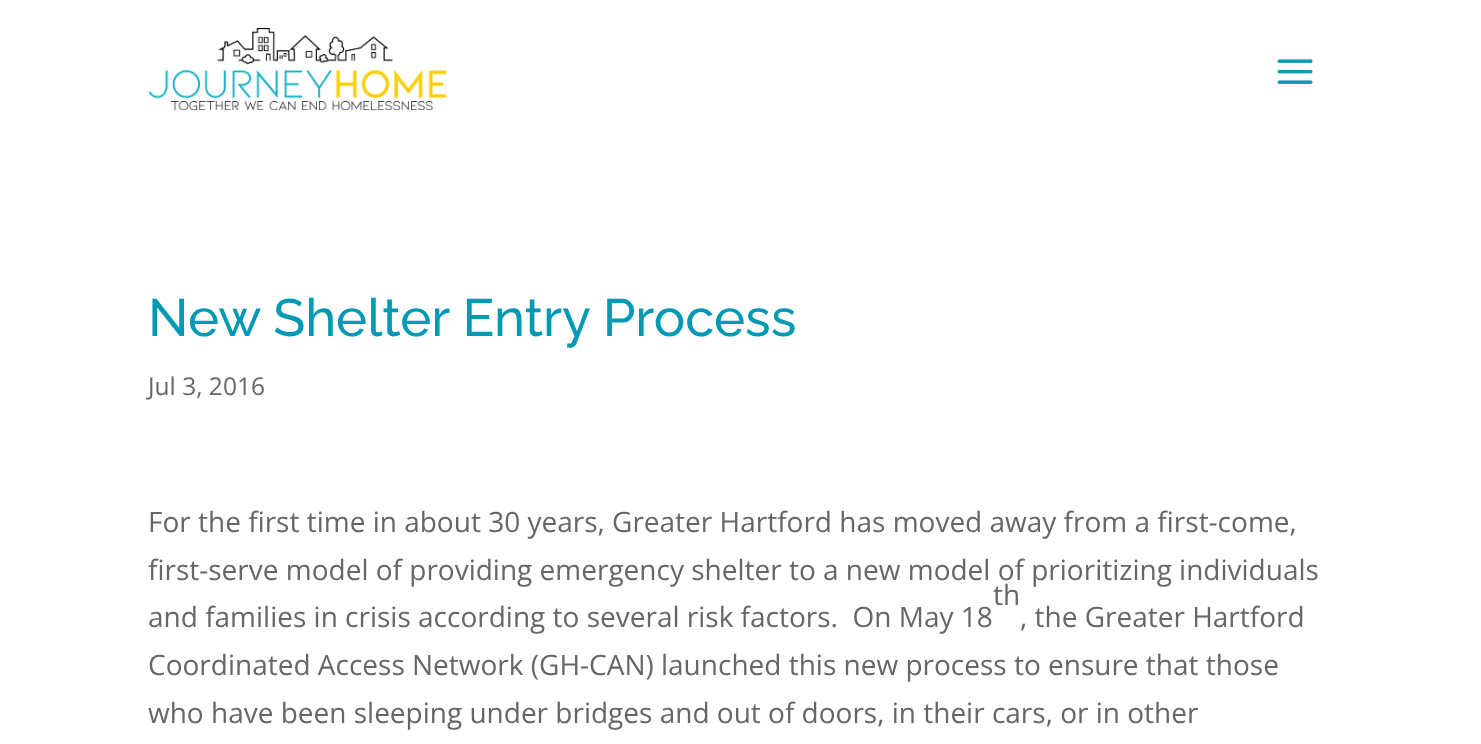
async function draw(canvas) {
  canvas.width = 1481
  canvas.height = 744
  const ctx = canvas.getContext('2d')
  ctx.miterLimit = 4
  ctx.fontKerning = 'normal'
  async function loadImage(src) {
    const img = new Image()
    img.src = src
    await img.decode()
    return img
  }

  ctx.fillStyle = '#fff'
  ctx.fillRect(0, 0, 1481, 744)
  ctx.drawImage(await loadImage('image0.png'), 148, 28, 299, 83)
  ctx.drawImage(await loadImage('image1.png'), 1277, 59, 36, 25)
  ctx.font = '100 52.5px Raleway'
  ctx.fillStyle = '#0199b4'
  ctx.fillText('New Shelter Entry Process', 148, 336)
  ctx.font = '24.5px Open Sans'
  ctx.fillStyle = '#666'
  ctx.fillText('Jul 3, 2016', 148, 395)
  ctx.font = '28px Open Sans'
  ctx.fillText('For the first time in about 30 years, Greater Hartford has moved away from a first-come,', 148, 532)
  ctx.fillText('first-serve model of providing emergency shelter to a new model of prioritizing individuals', 148, 580)
  ctx.fillText('th', 993, 605)
  ctx.fillText('and families in crisis according to several risk factors.  On May 18', 148, 627)
  ctx.fillText(', the Greater Hartford', 1020, 627)
  ctx.fillText('Coordinated Access Network (GH-CAN) launched this new process to ensure that those', 148, 675)
  ctx.fillText('who have been sleeping under bridges and out of doors, in their cars, or in other', 148, 723)
}

draw(document.querySelector('canvas'))
